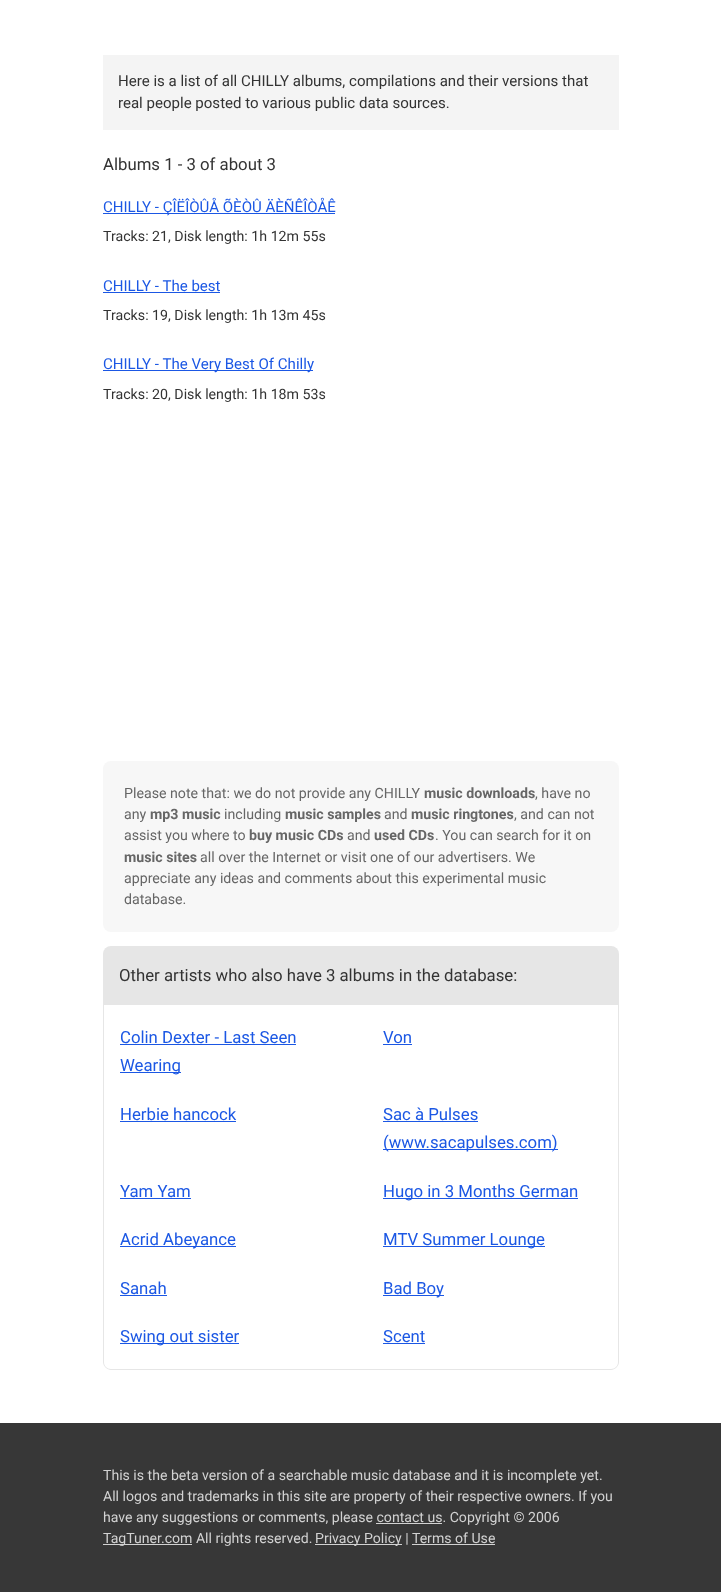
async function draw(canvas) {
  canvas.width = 721
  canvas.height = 1592
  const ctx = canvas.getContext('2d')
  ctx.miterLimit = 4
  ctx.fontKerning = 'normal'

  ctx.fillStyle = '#fff'
  ctx.fillRect(0, 0, 721, 1592)
  ctx.fillStyle = '#f4f4f4'
  ctx.fillRect(103, 55, 516, 75)
  ctx.font = '15.05px Roboto'
  ctx.fillStyle = '#333'
  ctx.fillText('Here is a list of all CHILLY albums, compilations and their versions that', 118, 86)
  ctx.fillText('real people posted to various public data sources.', 118, 108)
  ctx.font = '16.75px Roboto'
  ctx.fillText('Albums 1 - 3 of about 3', 103, 170)
  ctx.fillStyle = '#1b57e4'
  ctx.fillRect(103, 213, 232, 1)
  ctx.font = '15.05px Roboto'
  ctx.fillText('CHILLY - ÇÎËÎÒÛÅ ÕÈÒÛ ÄÈÑÊÎÒÅÊ', 103, 212)
  ctx.font = '14.2px Roboto'
  ctx.fillStyle = '#333'
  ctx.fillText('Tracks: 21, Disk length: 1h 12m 55s', 103, 241)
  ctx.font = '15.05px Roboto'
  ctx.fillStyle = '#1b57e4'
  ctx.fillText('CHILLY - The best', 103, 291)
  ctx.fillRect(103, 292, 117, 1)
  ctx.font = '14.2px Roboto'
  ctx.fillStyle = '#333'
  ctx.fillText('Tracks: 19, Disk length: 1h 13m 45s', 103, 320)
  ctx.fillStyle = '#1b57e4'
  ctx.fillRect(103, 370, 210, 1)
  ctx.font = '15.05px Roboto'
  ctx.fillText('CHILLY - The Very Best Of Chilly', 103, 369)
  ctx.font = '14.2px Roboto'
  ctx.fillStyle = '#333'
  ctx.fillText('Tracks: 20, Disk length: 1h 18m 53s', 103, 399)
  ctx.fillStyle = '#f7f7f7'
  ctx.beginPath()
  ctx.roundRect(103, 761, 516, 171, 8)
  ctx.fill()
  ctx.fillStyle = '#666'
  ctx.fillText('Please note that: we do not provide any CHILLY', 124, 798)
  ctx.font = 'bold 14.2px Roboto'
  ctx.fillText('music downloads', 424, 798)
  ctx.font = '14.2px Roboto'
  ctx.fillText(', have no', 535, 798)
  ctx.fillText('any', 124, 819)
  ctx.font = 'bold 14.2px Roboto'
  ctx.fillText('mp3 music', 150, 819)
  ctx.font = '14.2px Roboto'
  ctx.fillText('including', 224, 819)
  ctx.font = 'bold 14.2px Roboto'
  ctx.fillText('music samples', 285, 819)
  ctx.font = '14.2px Roboto'
  ctx.fillText('and', 384, 819)
  ctx.font = 'bold 14.2px Roboto'
  ctx.fillText('music ringtones', 411, 819)
  ctx.font = '14.2px Roboto'
  ctx.fillText(', and can not', 514, 819)
  ctx.fillText('assist you where to', 124, 840)
  ctx.font = 'bold 14.2px Roboto'
  ctx.fillText('buy music CDs', 249, 840)
  ctx.font = '14.2px Roboto'
  ctx.fillText('and', 347, 840)
  ctx.font = 'bold 14.2px Roboto'
  ctx.fillText('used CDs', 374, 840)
  ctx.font = '14.2px Roboto'
  ctx.fillText('. You can search for it on', 435, 840)
  ctx.font = 'bold 14.2px Roboto'
  ctx.fillText('music sites', 124, 862)
  ctx.font = '14.2px Roboto'
  ctx.fillText('all over the Internet or visit one of our advertisers. We', 200, 862)
  ctx.fillText('appreciate any ideas and comments about this experimental music', 124, 883)
  ctx.fillText('database.', 124, 904)
  ctx.fillStyle = '#e6e6e6'
  ctx.beginPath()
  ctx.roundRect(103, 946, 516, 59, [8, 8, 0, 0])
  ctx.fill()
  ctx.font = '16.75px Roboto'
  ctx.fillStyle = '#333'
  ctx.fillText('Other artists who also have 3 albums in the database:', 119, 981)
  ctx.fillStyle = '#e6e6e6'
  ctx.beginPath()
  ctx.moveTo(103, 1005)
  ctx.lineTo(619, 1005)
  ctx.lineTo(619, 1362)
  ctx.bezierCurveTo(619, 1366, 615, 1370, 611, 1370)
  ctx.lineTo(111, 1370)
  ctx.bezierCurveTo(107, 1370, 103, 1366, 103, 1362)
  ctx.closePath()
  ctx.moveTo(104, 1005)
  ctx.lineTo(618, 1005)
  ctx.lineTo(618, 1362)
  ctx.bezierCurveTo(618, 1366, 615, 1369, 611, 1369)
  ctx.lineTo(111, 1369)
  ctx.bezierCurveTo(107, 1369, 104, 1366, 104, 1362)
  ctx.closePath()
  ctx.fill('evenodd')
  ctx.fillStyle = '#1b57e4'
  ctx.fillText('Colin Dexter - Last Seen', 120, 1043)
  ctx.fillRect(120, 1044, 176, 1)
  ctx.fillRect(120, 1072, 61, 1)
  ctx.fillText('Wearing', 120, 1071)
  ctx.fillText('Von', 383, 1043)
  ctx.fillRect(383, 1044, 29, 1)
  ctx.fillText('Herbie hancock', 120, 1120)
  ctx.fillRect(120, 1121, 116, 1)
  ctx.fillText('Sac à Pulses', 383, 1120)
  ctx.fillRect(383, 1121, 95, 1)
  ctx.fillRect(383, 1149, 175, 1)
  ctx.fillText('(www.sacapulses.com)', 383, 1148)
  ctx.fillText('Yam Yam', 120, 1197)
  ctx.fillRect(120, 1198, 71, 1)
  ctx.fillRect(383, 1198, 195, 1)
  ctx.fillText('Hugo in 3 Months German', 383, 1197)
  ctx.fillRect(120, 1246, 116, 1)
  ctx.fillText('Acrid Abeyance', 120, 1245)
  ctx.fillRect(383, 1246, 162, 1)
  ctx.fillText('MTV Summer Lounge', 383, 1245)
  ctx.fillText('Sanah', 120, 1294)
  ctx.fillRect(120, 1295, 47, 1)
  ctx.fillRect(383, 1295, 61, 1)
  ctx.fillText('Bad Boy', 383, 1294)
  ctx.fillRect(120, 1343, 119, 1)
  ctx.fillText('Swing out sister', 120, 1342)
  ctx.fillText('Scent', 383, 1342)
  ctx.fillRect(383, 1343, 42, 1)
  ctx.fillStyle = '#373737'
  ctx.fillRect(0, 1423, 721, 169)
  ctx.font = '14.1px Roboto'
  ctx.fillStyle = '#d2d2d2'
  ctx.fillText('This is the beta version of a searchable music database and it is incomplete yet.', 103, 1480)
  ctx.fillText('All logos and trademarks in this site are property of their respective owners. If you', 103, 1501)
  ctx.fillText('have any suggestions or comments, please contact us. Copyright © 2006', 103, 1522)
  ctx.fillRect(376, 1523, 66, 1)
  ctx.fillRect(103, 1544, 89, 1)
  ctx.fillText('TagTuner.com All rights reserved.', 103, 1543)
  ctx.fillRect(315, 1544, 87, 1)
  ctx.fillText('Privacy Policy | Terms of Use', 315, 1543)
  ctx.fillRect(412, 1544, 83, 1)
}

draw(document.querySelector('canvas'))
